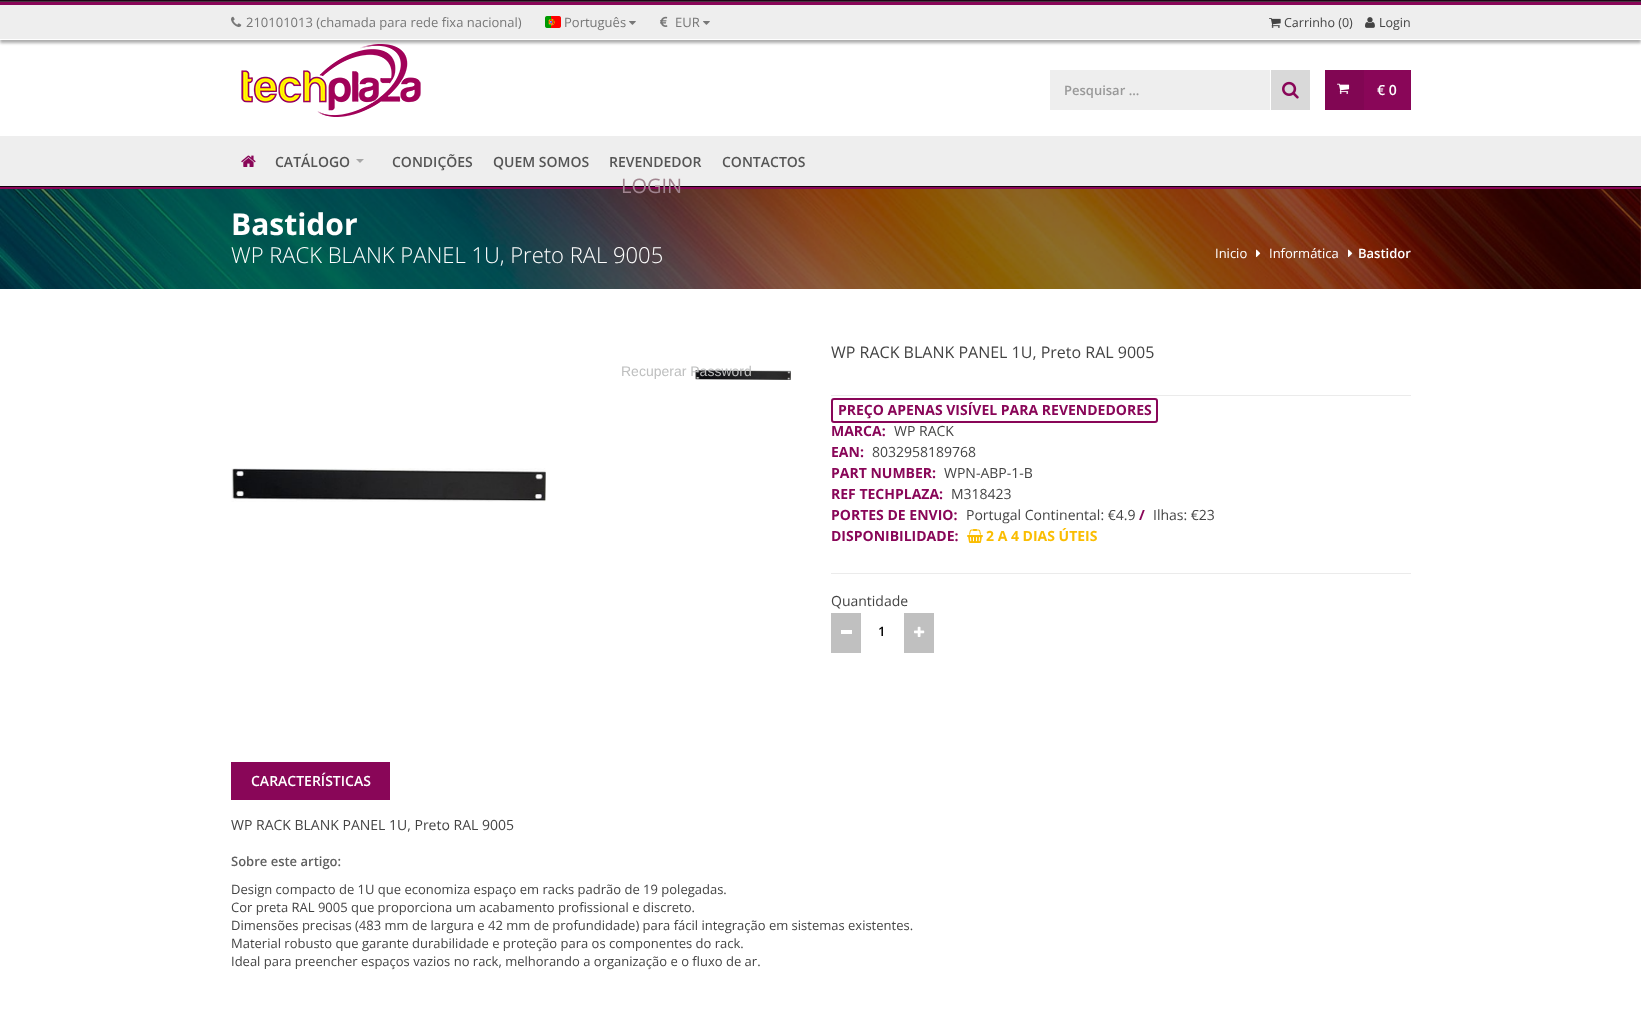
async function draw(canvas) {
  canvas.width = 1641
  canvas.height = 1023
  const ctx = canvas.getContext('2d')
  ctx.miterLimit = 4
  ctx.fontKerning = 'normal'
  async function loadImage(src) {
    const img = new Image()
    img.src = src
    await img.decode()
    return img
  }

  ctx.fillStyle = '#fff'
  ctx.fillRect(0, 0, 1641, 1023)
  ctx.fillStyle = '#463540'
  ctx.fillRect(0, 1, 1641, 1)
  ctx.fillStyle = '#1d0715'
  ctx.fillRect(0, 0, 1641, 1)
  ctx.fillStyle = '#32323266'
  ctx.filter = 'blur(1.5px)'
  ctx.beginPath()
  ctx.rect(0, 5, 1641, 38)
  ctx.fill()
  ctx.filter = 'none'
  ctx.fillStyle = '#eee'
  ctx.fillRect(0, 5, 1641, 34)
  ctx.fillStyle = '#890658'
  ctx.fillRect(0, 2, 1641, 3)
  ctx.fillStyle = '#fff'
  ctx.fillRect(0, 39, 1641, 1)
  ctx.drawImage(await loadImage('image0.png'), 231, 16, 11, 11)
  ctx.font = '13px Open Sans'
  ctx.fillStyle = '#777'
  ctx.fillText('210101013 (chamada para rede fixa nacional)', 246, 27)
  ctx.drawImage(await loadImage('image1.png'), 545, 16, 16, 12)
  ctx.fillText('Português', 564, 27)
  ctx.drawImage(await loadImage('image2.png'), 629, 21, 7, 4)
  ctx.drawImage(await loadImage('image3.png'), 660, 16, 8, 11)
  ctx.fillText('EUR', 675, 27)
  ctx.drawImage(await loadImage('image2.png'), 703, 21, 7, 4)
  ctx.drawImage(await loadImage('image4.png'), 1269, 18, 12, 10)
  ctx.font = '12.5px Open Sans'
  ctx.fillStyle = '#444'
  ctx.fillText('Carrinho (0)', 1284, 27)
  ctx.drawImage(await loadImage('image5.png'), 1365, 17, 10, 11)
  ctx.fillText('Login', 1379, 27)
  ctx.drawImage(await loadImage('image6.png'), 241, 44, 180, 73)
  ctx.fillStyle = '#eee'
  ctx.fillRect(1050, 70, 220, 40)
  ctx.font = '600 13px Open Sans'
  ctx.fillStyle = '#999'
  ctx.fillText('Pesquisar ...', 1064, 95)
  ctx.fillStyle = '#d9d9d9'
  ctx.fillRect(1271, 70, 39, 40)
  ctx.drawImage(await loadImage('image7.png'), 1282, 81, 17, 18)
  ctx.fillStyle = '#890658'
  ctx.fillRect(1364, 70, 47, 40)
  ctx.fillStyle = '#810653'
  ctx.fillRect(1325, 70, 39, 40)
  ctx.drawImage(await loadImage('image8.png'), 1337, 83, 13, 11)
  ctx.font = '600 14px Open Sans'
  ctx.fillStyle = '#fff'
  ctx.fillText('€ 0', 1377, 95)
  ctx.fillStyle = '#890658'
  ctx.fillRect(0, 187, 1641, 2)
  ctx.fillStyle = '#eee'
  ctx.fillRect(0, 136, 1641, 50)
  ctx.fillStyle = '#12010c'
  ctx.fillRect(0, 186, 1641, 1)
  ctx.drawImage(await loadImage('image9.png'), 241, 155, 15, 12)
  ctx.fillStyle = '#555'
  ctx.fillText('CATÁLOGO', 275, 167)
  ctx.fillStyle = '#a7a7a7'
  ctx.beginPath()
  ctx.moveTo(356, 159)
  ctx.lineTo(364, 159)
  ctx.lineTo(360, 163)
  ctx.closePath()
  ctx.fill()
  ctx.fillStyle = '#555'
  ctx.fillText('CONDIÇÕES', 392, 167)
  ctx.fillText('QUEM SOMOS', 493, 167)
  ctx.fillText('REVENDEDOR', 609, 167)
  ctx.fillText('CONTACTOS', 722, 167)
  ctx.drawImage(await loadImage('image10.png'), 0, 189, 1641, 100)
  ctx.font = 'bold 30px Open Sans'
  ctx.fillStyle = '#fff'
  ctx.fillText('Bastidor', 231, 235)
  ctx.font = '300 22px Open Sans'
  ctx.fillText('WP RACK BLANK PANEL 1U, Preto RAL 9005', 231, 263)
  ctx.font = '13px Open Sans'
  ctx.fillText('Inicio', 1215, 258)
  ctx.drawImage(await loadImage('image11.png'), 1256, 249, 5, 8)
  ctx.fillText('Informática', 1269, 258)
  ctx.drawImage(await loadImage('image12.png'), 1348, 249, 5, 8)
  ctx.font = '600 13px Open Sans'
  ctx.fillText('Bastidor', 1358, 258)
  ctx.drawImage(await loadImage('image13.png'), 695, 370, 96, 10)
  ctx.drawImage(await loadImage('image14.png'), 231, 468, 315, 34)
  ctx.fillStyle = '#ebebeb'
  ctx.fillRect(831, 395, 580, 1)
  ctx.font = '16px Open Sans'
  ctx.fillStyle = '#444'
  ctx.fillText('WP RACK BLANK PANEL 1U, Preto RAL 9005', 831, 358)
  ctx.fillStyle = '#ebebeb'
  ctx.fillRect(831, 573, 580, 1)
  ctx.beginPath()
  ctx.roundRect(832, 399, 325, 23, 2)
  ctx.strokeStyle = '#890658'
  ctx.lineWidth = 2
  ctx.stroke()
  ctx.font = 'bold 14px Open Sans'
  ctx.fillStyle = '#890658'
  ctx.fillText('PREÇO APENAS VISÍVEL PARA REVENDEDORES', 838, 415)
  ctx.fillText('MARCA:', 831, 436)
  ctx.font = '14px Open Sans'
  ctx.fillStyle = '#444'
  ctx.fillText('WP RACK', 894, 436)
  ctx.font = 'bold 14px Open Sans'
  ctx.fillStyle = '#890658'
  ctx.fillText('EAN:', 831, 457)
  ctx.font = '14px Open Sans'
  ctx.fillStyle = '#444'
  ctx.fillText('8032958189768', 872, 457)
  ctx.font = 'bold 14px Open Sans'
  ctx.fillStyle = '#890658'
  ctx.fillText('PART NUMBER:', 831, 478)
  ctx.font = '14px Open Sans'
  ctx.fillStyle = '#444'
  ctx.fillText('WPN-ABP-1-B', 944, 478)
  ctx.font = 'bold 14px Open Sans'
  ctx.fillStyle = '#890658'
  ctx.fillText('REF TECHPLAZA:', 831, 499)
  ctx.font = '14px Open Sans'
  ctx.fillStyle = '#444'
  ctx.fillText('M318423', 951, 499)
  ctx.font = 'bold 14px Open Sans'
  ctx.fillStyle = '#890658'
  ctx.fillText('PORTES DE ENVIO:', 831, 520)
  ctx.font = '14px Open Sans'
  ctx.fillStyle = '#444'
  ctx.fillText('Portugal Continental: €4.9', 966, 520)
  ctx.font = 'bold 14px Open Sans'
  ctx.fillStyle = '#890658'
  ctx.fillText('/', 1139, 520)
  ctx.font = '14px Open Sans'
  ctx.fillStyle = '#444'
  ctx.fillText('Ilhas: €23', 1153, 520)
  ctx.font = 'bold 14px Open Sans'
  ctx.fillStyle = '#890658'
  ctx.fillText('DISPONIBILIDADE:', 831, 541)
  ctx.drawImage(await loadImage('image15.png'), 967, 529, 16, 14)
  ctx.fillStyle = '#fabd02'
  ctx.fillText('2 A 4 DIAS ÚTEIS', 986, 541)
  ctx.font = '14px Open Sans'
  ctx.fillStyle = '#444'
  ctx.fillText('Quantidade', 831, 606)
  ctx.fillStyle = '#c0c0c0'
  ctx.fillRect(831, 613, 30, 40)
  ctx.fillStyle = '#fff'
  ctx.fillRect(841, 630, 11, 4)
  ctx.font = '600 13px Open Sans'
  ctx.fillStyle = '#000'
  ctx.fillText('1', 878, 636)
  ctx.fillStyle = '#c0c0c0'
  ctx.fillRect(904, 613, 30, 40)
  ctx.drawImage(await loadImage('image16.png'), 914, 626, 11, 11)
  ctx.fillStyle = '#890658'
  ctx.fillRect(231, 762, 159, 38)
  ctx.font = '600 14px Open Sans'
  ctx.fillStyle = '#fff'
  ctx.fillText('CARACTERÍSTICAS', 251, 786)
  ctx.font = '14px Open Sans'
  ctx.fillStyle = '#444'
  ctx.fillText('WP RACK BLANK PANEL 1U, Preto RAL 9005', 231, 830)
  ctx.font = '600 13px Open Sans'
  ctx.fillStyle = '#606060'
  ctx.fillText('Sobre este artigo:', 231, 866)
  ctx.font = '13px Open Sans'
  ctx.fillStyle = '#444'
  ctx.fillText('Design compacto de 1U que economiza espaço em racks padrão de 19 polegadas.', 231, 894)
  ctx.fillText('Cor preta RAL 9005 que proporciona um acabamento profissional e discreto.', 231, 912)
  ctx.fillText('Dimensões precisas (483 mm de largura e 42 mm de profundidade) para fácil integração em sistemas existentes.', 231, 930)
  ctx.fillText('Material robusto que garante durabilidade e proteção para os componentes do rack.', 231, 948)
  ctx.fillText('Ideal para preencher espaços vazios no rack, melhorando a organização e o fluxo de ar.', 231, 966)
  ctx.font = '20px Open Sans'
  ctx.fillStyle = '#a0848f'
  ctx.fillText('LOGIN', 621, 193)
  ctx.font = '14px Liberation Sans'
  ctx.fillStyle = '#bebfbf'
  ctx.fillText('Recuperar Password', 621, 376)
}

draw(document.querySelector('canvas'))
